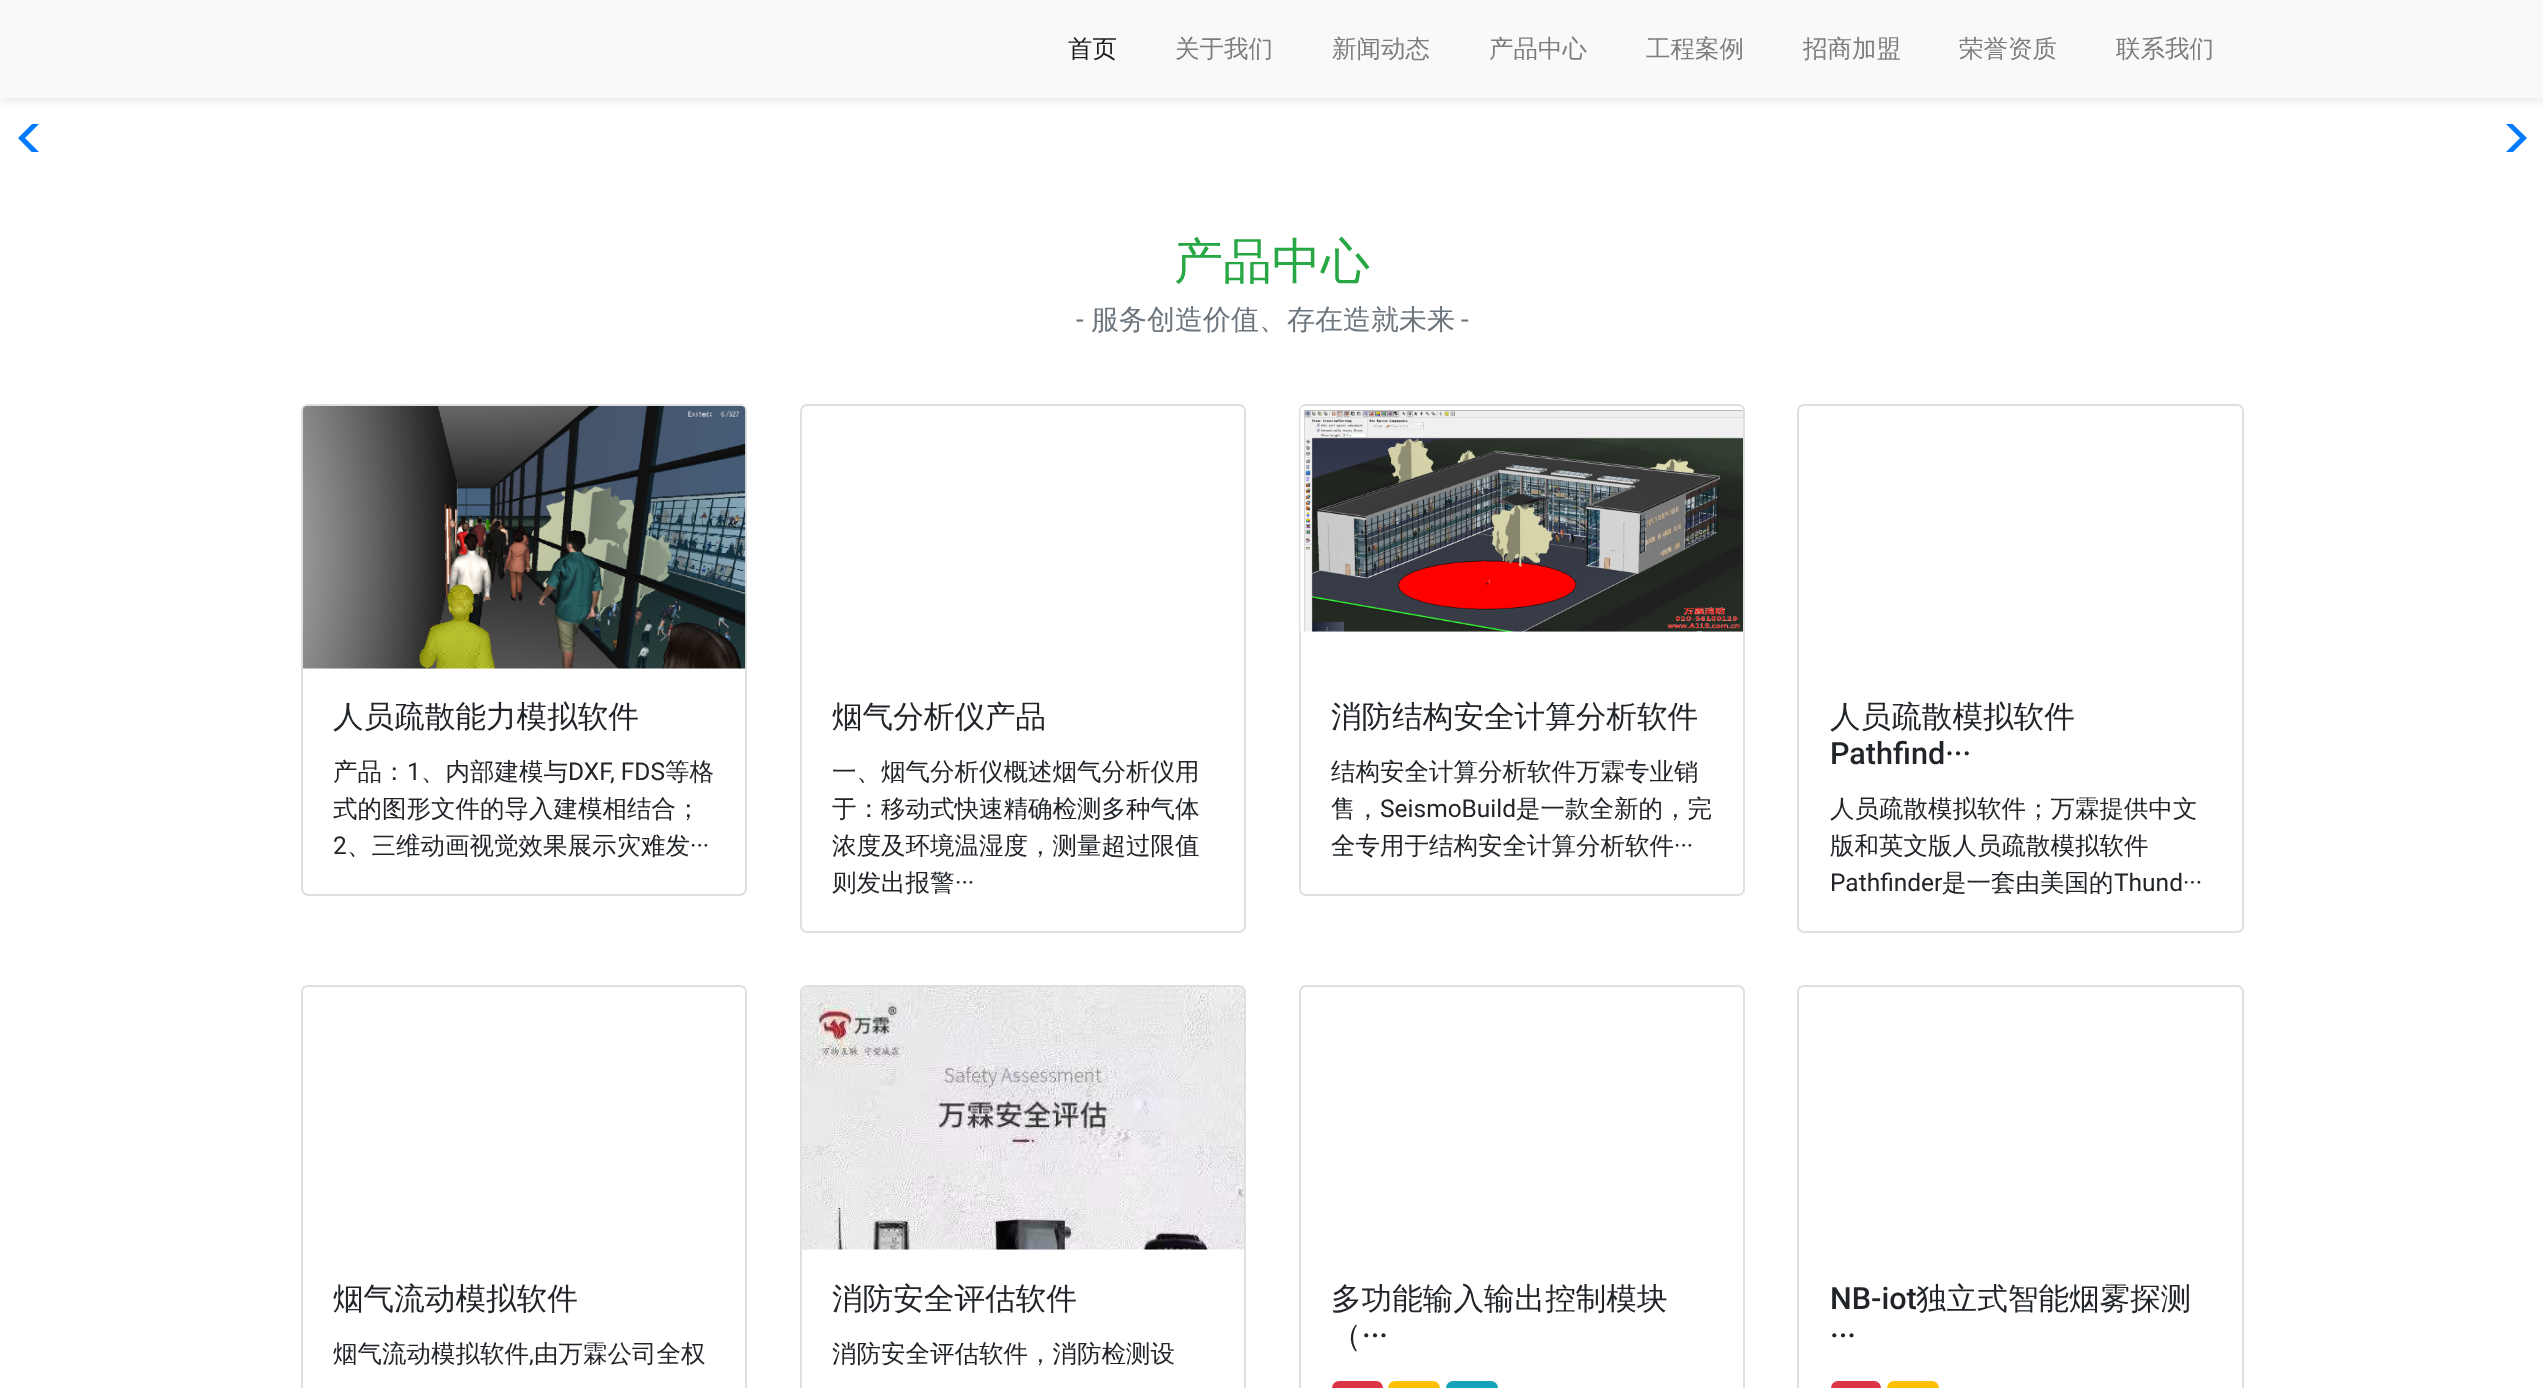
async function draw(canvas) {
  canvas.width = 2543
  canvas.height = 1388
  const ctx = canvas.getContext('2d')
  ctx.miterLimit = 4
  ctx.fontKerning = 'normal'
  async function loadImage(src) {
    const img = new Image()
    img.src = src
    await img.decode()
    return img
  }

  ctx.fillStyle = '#fff'
  ctx.fillRect(0, 0, 2543, 1388)
  ctx.fillStyle = '#00000012'
  ctx.filter = 'blur(3px)'
  ctx.beginPath()
  ctx.rect(0, 4, 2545, 98)
  ctx.fill()
  ctx.filter = 'none'
  ctx.fillStyle = '#f8f9fa'
  ctx.fillRect(0, 0, 2543, 98)
  ctx.font = '500 24.5px WenQuanYi Zen Hei'
  ctx.fillStyle = '#191919'
  ctx.fillText('首页', 1068, 57)
  ctx.fillStyle = '#7c7d7d'
  ctx.fillText('关于我们', 1175, 57)
  ctx.fillText('新闻动态', 1332, 57)
  ctx.fillText('产品中心', 1489, 57)
  ctx.fillText('工程案例', 1646, 57)
  ctx.fillText('招商加盟', 1803, 57)
  ctx.fillText('荣誉资质', 1959, 57)
  ctx.fillText('联系我们', 2116, 57)
  ctx.save()
  ctx.beginPath()
  ctx.rect(18, 124, 47, 28)
  ctx.clip()
  ctx.fillStyle = '#007aff'
  ctx.beginPath()
  ctx.moveTo(18, 138)
  ctx.lineTo(56, 100)
  ctx.lineTo(60, 103)
  ctx.lineTo(25, 138)
  ctx.lineTo(60, 173)
  ctx.lineTo(56, 177)
  ctx.closePath()
  ctx.fill()
  ctx.restore()
  ctx.save()
  ctx.beginPath()
  ctx.rect(2480, 124, 47, 28)
  ctx.clip()
  ctx.fillStyle = '#007aff'
  ctx.beginPath()
  ctx.moveTo(2527, 138)
  ctx.lineTo(2488, 177)
  ctx.lineTo(2485, 173)
  ctx.lineTo(2520, 138)
  ctx.lineTo(2485, 103)
  ctx.lineTo(2488, 100)
  ctx.closePath()
  ctx.fill()
  ctx.restore()
  ctx.font = '500 49px WenQuanYi Zen Hei'
  ctx.fillStyle = '#28a745'
  ctx.fillText('产品中心', 1174, 278)
  ctx.font = '28px Roboto'
  ctx.fillStyle = '#6c757d'
  ctx.fillText('-', 1076, 329)
  ctx.font = '500 28px WenQuanYi Zen Hei'
  ctx.fillText('服务创造价值、存在造就未来', 1091, 329)
  ctx.font = '28px Roboto'
  ctx.fillText('-', 1461, 329)
  ctx.beginPath()
  ctx.roundRect(302, 405, 444, 490, 6)
  ctx.strokeStyle = '#dfdfdf'
  ctx.lineWidth = 2
  ctx.stroke()
  ctx.drawImage(await loadImage('image0.png'), 303, 406, 443, 263)
  ctx.font = '500 30.6px WenQuanYi Zen Hei'
  ctx.fillStyle = '#212529'
  ctx.fillText('人员疏散能力模拟软件', 333, 727)
  ctx.font = '500 24.5px WenQuanYi Zen Hei'
  ctx.fillText('产品：', 333, 780)
  ctx.font = '24.5px Roboto'
  ctx.fillText('1', 407, 780)
  ctx.font = '500 24.5px WenQuanYi Zen Hei'
  ctx.fillText('、内部建模与', 421, 780)
  ctx.font = '24.5px Roboto'
  ctx.fillText('DXF, FDS', 568, 780)
  ctx.font = '500 24.5px WenQuanYi Zen Hei'
  ctx.fillText('等格', 665, 780)
  ctx.fillText('式的图形文件的导入建模相结合；', 333, 817)
  ctx.font = '24.5px Roboto'
  ctx.fillText('2', 333, 854)
  ctx.font = '500 24.5px WenQuanYi Zen Hei'
  ctx.fillText('、三维动画视觉效果展示灾难发', 347, 854)
  ctx.font = '24.5px Roboto'
  ctx.fillText('···', 690, 854)
  ctx.beginPath()
  ctx.roundRect(801, 405, 444, 527, 6)
  ctx.stroke()
  ctx.font = '500 30.6px WenQuanYi Zen Hei'
  ctx.fillText('烟气分析仪产品', 832, 727)
  ctx.font = '500 24.5px WenQuanYi Zen Hei'
  ctx.fillText('一、烟气分析仪概述烟气分析仪用', 832, 780)
  ctx.fillText('于：移动式快速精确检测多种气体', 832, 817)
  ctx.fillText('浓度及环境温湿度，测量超过限值', 832, 854)
  ctx.fillText('则发出报警', 832, 891)
  ctx.font = '24.5px Roboto'
  ctx.fillText('···', 955, 891)
  ctx.beginPath()
  ctx.roundRect(1300, 405, 444, 490, 6)
  ctx.stroke()
  ctx.drawImage(await loadImage('image1.png'), 1300, 406, 443, 226)
  ctx.font = '500 30.6px WenQuanYi Zen Hei'
  ctx.fillText('消防结构安全计算分析软件', 1331, 727)
  ctx.font = '500 24.5px WenQuanYi Zen Hei'
  ctx.fillText('结构安全计算分析软件万霖专业销', 1331, 780)
  ctx.fillText('售，', 1331, 817)
  ctx.font = '24.5px Roboto'
  ctx.fillText('SeismoBuild', 1380, 817)
  ctx.font = '500 24.5px WenQuanYi Zen Hei'
  ctx.fillText('是一款全新的，完', 1516, 817)
  ctx.fillText('全专用于结构安全计算分析软件', 1331, 854)
  ctx.font = '24.5px Roboto'
  ctx.fillText('···', 1674, 854)
  ctx.beginPath()
  ctx.roundRect(1798, 405, 445, 527, 6)
  ctx.stroke()
  ctx.font = '500 30.6px WenQuanYi Zen Hei'
  ctx.fillText('人员疏散模拟软件', 1830, 727)
  ctx.font = '500 30.6px Roboto'
  ctx.fillText('Pathfind···', 1830, 764)
  ctx.font = '500 24.5px WenQuanYi Zen Hei'
  ctx.fillText('人员疏散模拟软件；万霖提供中文', 1830, 817)
  ctx.fillText('版和英文版人员疏散模拟软件', 1830, 854)
  ctx.font = '24.5px Roboto'
  ctx.fillText('Pathfinder', 1830, 891)
  ctx.font = '500 24.5px WenQuanYi Zen Hei'
  ctx.fillText('是一套由美国的', 1942, 891)
  ctx.font = '24.5px Roboto'
  ctx.fillText('Thund···', 2114, 891)
  ctx.beginPath()
  ctx.roundRect(302, 986, 444, 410, 6)
  ctx.stroke()
  ctx.font = '500 30.6px WenQuanYi Zen Hei'
  ctx.fillText('烟气流动模拟软件', 333, 1309)
  ctx.font = '500 24.5px WenQuanYi Zen Hei'
  ctx.fillText('烟气流动模拟软件', 333, 1362)
  ctx.font = '24.5px Roboto'
  ctx.fillText(',', 529, 1362)
  ctx.font = '500 24.5px WenQuanYi Zen Hei'
  ctx.fillText('由万霖公司全权', 534, 1362)
  ctx.beginPath()
  ctx.roundRect(801, 986, 444, 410, 6)
  ctx.stroke()
  ctx.drawImage(await loadImage('image2.png'), 801, 987, 443, 263)
  ctx.font = '500 30.6px WenQuanYi Zen Hei'
  ctx.fillText('消防安全评估软件', 832, 1309)
  ctx.font = '500 24.5px WenQuanYi Zen Hei'
  ctx.fillText('消防安全评估软件，消防检测设', 832, 1362)
  ctx.beginPath()
  ctx.roundRect(1300, 986, 444, 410, 6)
  ctx.stroke()
  ctx.font = '500 30.6px WenQuanYi Zen Hei'
  ctx.fillText('多功能输入输出控制模块', 1331, 1309)
  ctx.fillText('（', 1331, 1346)
  ctx.font = '500 30.6px Roboto'
  ctx.fillText('···', 1362, 1346)
  ctx.fillStyle = '#dc3545'
  ctx.beginPath()
  ctx.roundRect(1332, 1381, 51, 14, 7)
  ctx.fill()
  ctx.fillStyle = '#ffc107'
  ctx.beginPath()
  ctx.roundRect(1388, 1381, 52, 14, 7)
  ctx.fill()
  ctx.fillStyle = '#17a2b8'
  ctx.beginPath()
  ctx.roundRect(1446, 1381, 52, 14, 7)
  ctx.fill()
  ctx.beginPath()
  ctx.roundRect(1798, 986, 445, 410, 6)
  ctx.stroke()
  ctx.fillStyle = '#212529'
  ctx.fillText('NB-iot', 1830, 1309)
  ctx.font = '500 30.6px WenQuanYi Zen Hei'
  ctx.fillText('独立式智能烟雾探测', 1916, 1309)
  ctx.font = '500 30.6px Roboto'
  ctx.fillText('···', 1830, 1346)
  ctx.fillStyle = '#dc3545'
  ctx.beginPath()
  ctx.roundRect(1831, 1381, 50, 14, 7)
  ctx.fill()
  ctx.fillStyle = '#ffc107'
  ctx.beginPath()
  ctx.roundRect(1887, 1381, 52, 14, 7)
  ctx.fill()
}

draw(document.querySelector('canvas'))
